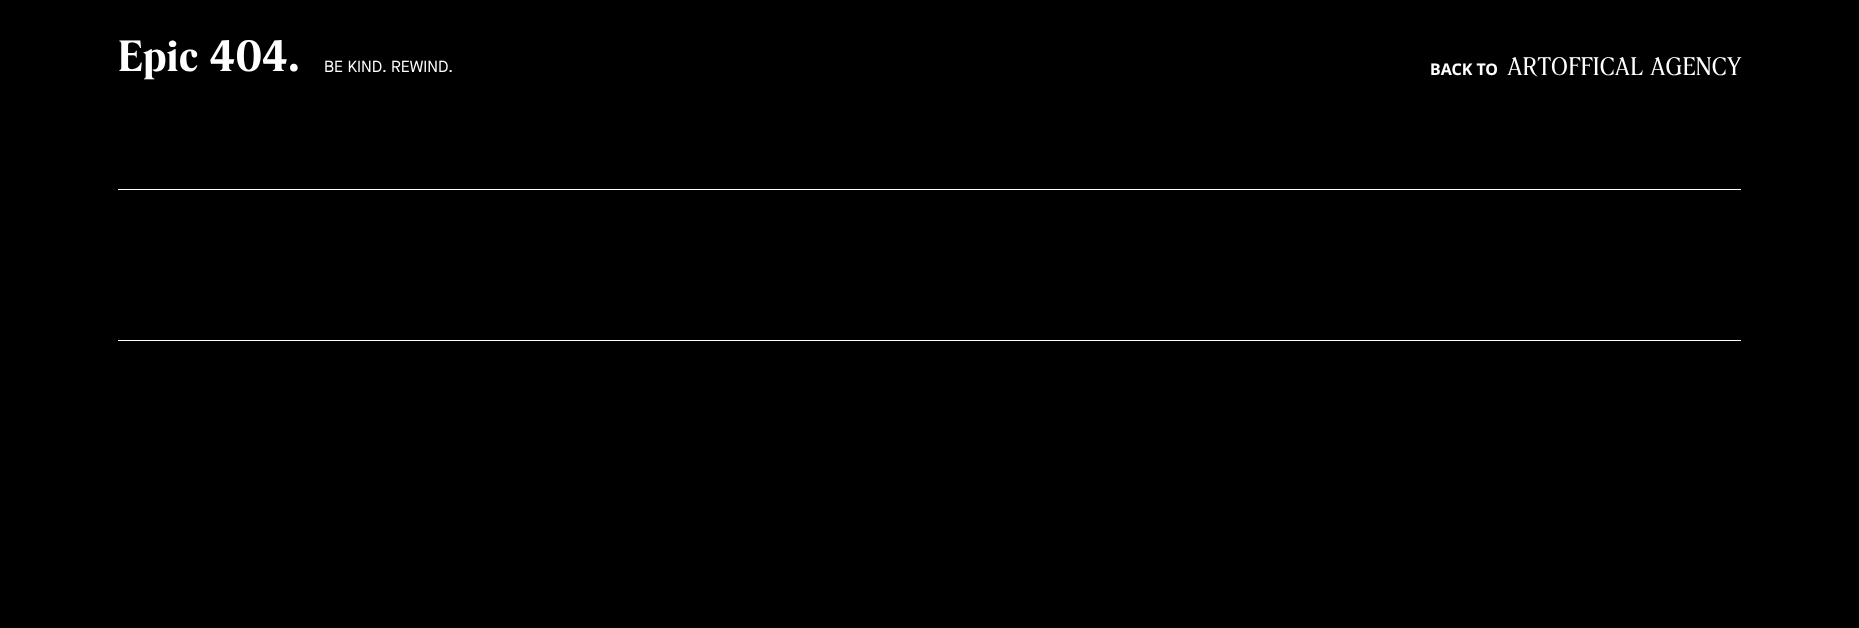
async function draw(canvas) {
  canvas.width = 1859
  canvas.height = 628
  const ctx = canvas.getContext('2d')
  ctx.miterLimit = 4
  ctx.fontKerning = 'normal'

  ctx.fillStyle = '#000'
  ctx.fillRect(0, 0, 1859, 628)
  ctx.font = 'bold 41.5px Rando'
  ctx.fillStyle = '#fff'
  ctx.fillText('Epic 404.', 118, 71)
  ctx.font = '16px Maison Neue'
  ctx.fillText('BE KIND. REWIND.', 324, 72)
  ctx.font = 'bold 16px Noto Sans'
  ctx.fillText('BACK TO', 1430, 75)
  ctx.font = '24px Rando'
  ctx.fillText('ARTOFFICAL AGENCY', 1507, 75)
  ctx.fillRect(118, 189, 1623, 1)
  ctx.fillRect(118, 340, 1623, 1)
}

draw(document.querySelector('canvas'))
